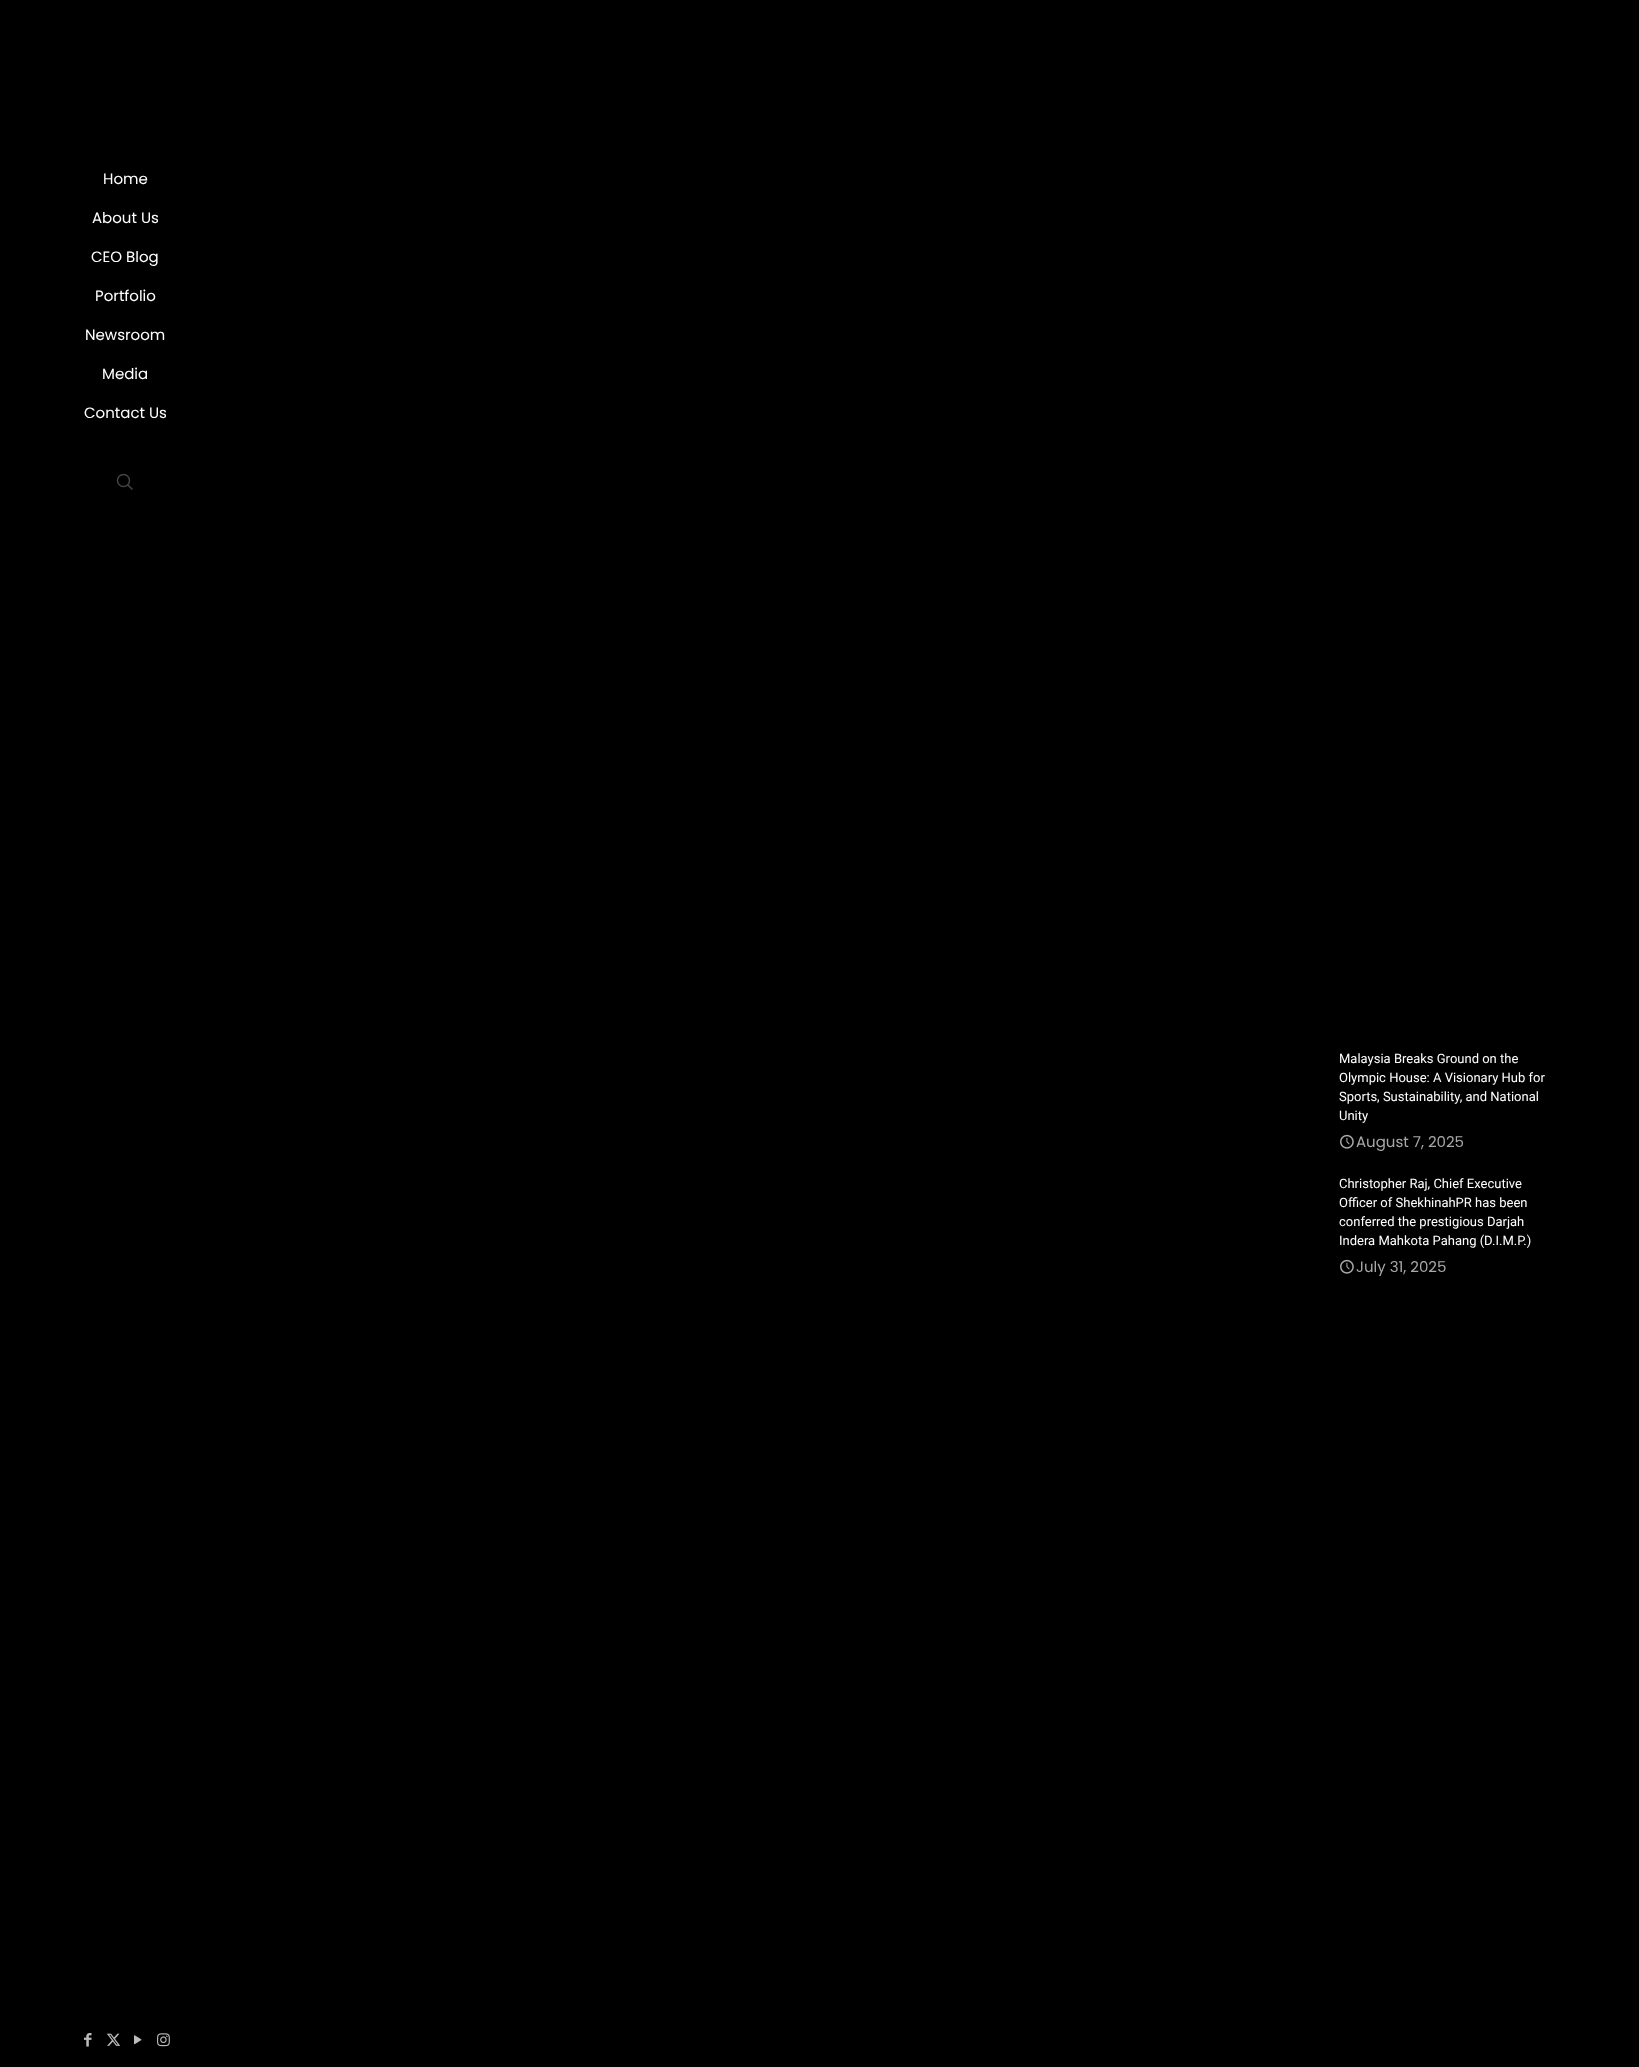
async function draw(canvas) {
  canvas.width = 1639
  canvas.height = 2067
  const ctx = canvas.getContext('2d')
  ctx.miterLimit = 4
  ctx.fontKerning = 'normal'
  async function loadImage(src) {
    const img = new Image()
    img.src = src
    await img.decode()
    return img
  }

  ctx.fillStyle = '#000'
  ctx.fillRect(0, 0, 1639, 2067)
  ctx.font = '15px Poppins'
  ctx.fillStyle = '#fff'
  ctx.fillText('Home', 103, 184)
  ctx.fillText('About Us', 92, 223)
  ctx.fillText('CEO Blog', 91, 262)
  ctx.fillText('Portfolio', 95, 301)
  ctx.fillText('Newsroom', 85, 340)
  ctx.fillText('Media', 102, 379)
  ctx.fillText('Contact Us', 84, 418)
  ctx.beginPath()
  ctx.arc(123.5, 480.5, 6, 0, 2 * Math.PI)
  ctx.strokeStyle = '#444'
  ctx.lineWidth = 1.5
  ctx.stroke()
  ctx.beginPath()
  ctx.moveTo(127.5, 484.5)
  ctx.lineTo(132.5, 489.5)
  ctx.stroke()
  ctx.drawImage(await loadImage('image0.png'), 84, 2033, 8, 14)
  ctx.drawImage(await loadImage('image1.png'), 106, 2033, 15, 13)
  ctx.drawImage(await loadImage('image2.png'), 134, 2035, 8, 10)
  ctx.drawImage(await loadImage('image3.png'), 157, 2033, 13, 14)
  ctx.font = '13px Roboto'
  ctx.fillText('Malaysia Breaks Ground on the', 1339, 1063)
  ctx.fillText('Olympic House: A Visionary Hub for', 1339, 1082)
  ctx.fillText('Sports, Sustainability, and National', 1339, 1101)
  ctx.fillText('Unity', 1339, 1120)
  ctx.drawImage(await loadImage('image4.png'), 1340, 1134, 14, 15)
  ctx.font = '15px Poppins'
  ctx.fillStyle = '#a8a8a8'
  ctx.fillText('August 7, 2025', 1356, 1147)
  ctx.font = '13px Roboto'
  ctx.fillStyle = '#fff'
  ctx.fillText('Christopher Raj, Chief Executive', 1339, 1188)
  ctx.fillText('Officer of ShekhinahPR has been', 1339, 1207)
  ctx.fillText('conferred the prestigious Darjah', 1339, 1226)
  ctx.fillText('Indera Mahkota Pahang (D.I.M.P.)', 1339, 1245)
  ctx.drawImage(await loadImage('image4.png'), 1340, 1259, 14, 15)
  ctx.font = '15px Poppins'
  ctx.fillStyle = '#a8a8a8'
  ctx.fillText('July 31, 2025', 1356, 1272)
}

draw(document.querySelector('canvas'))
